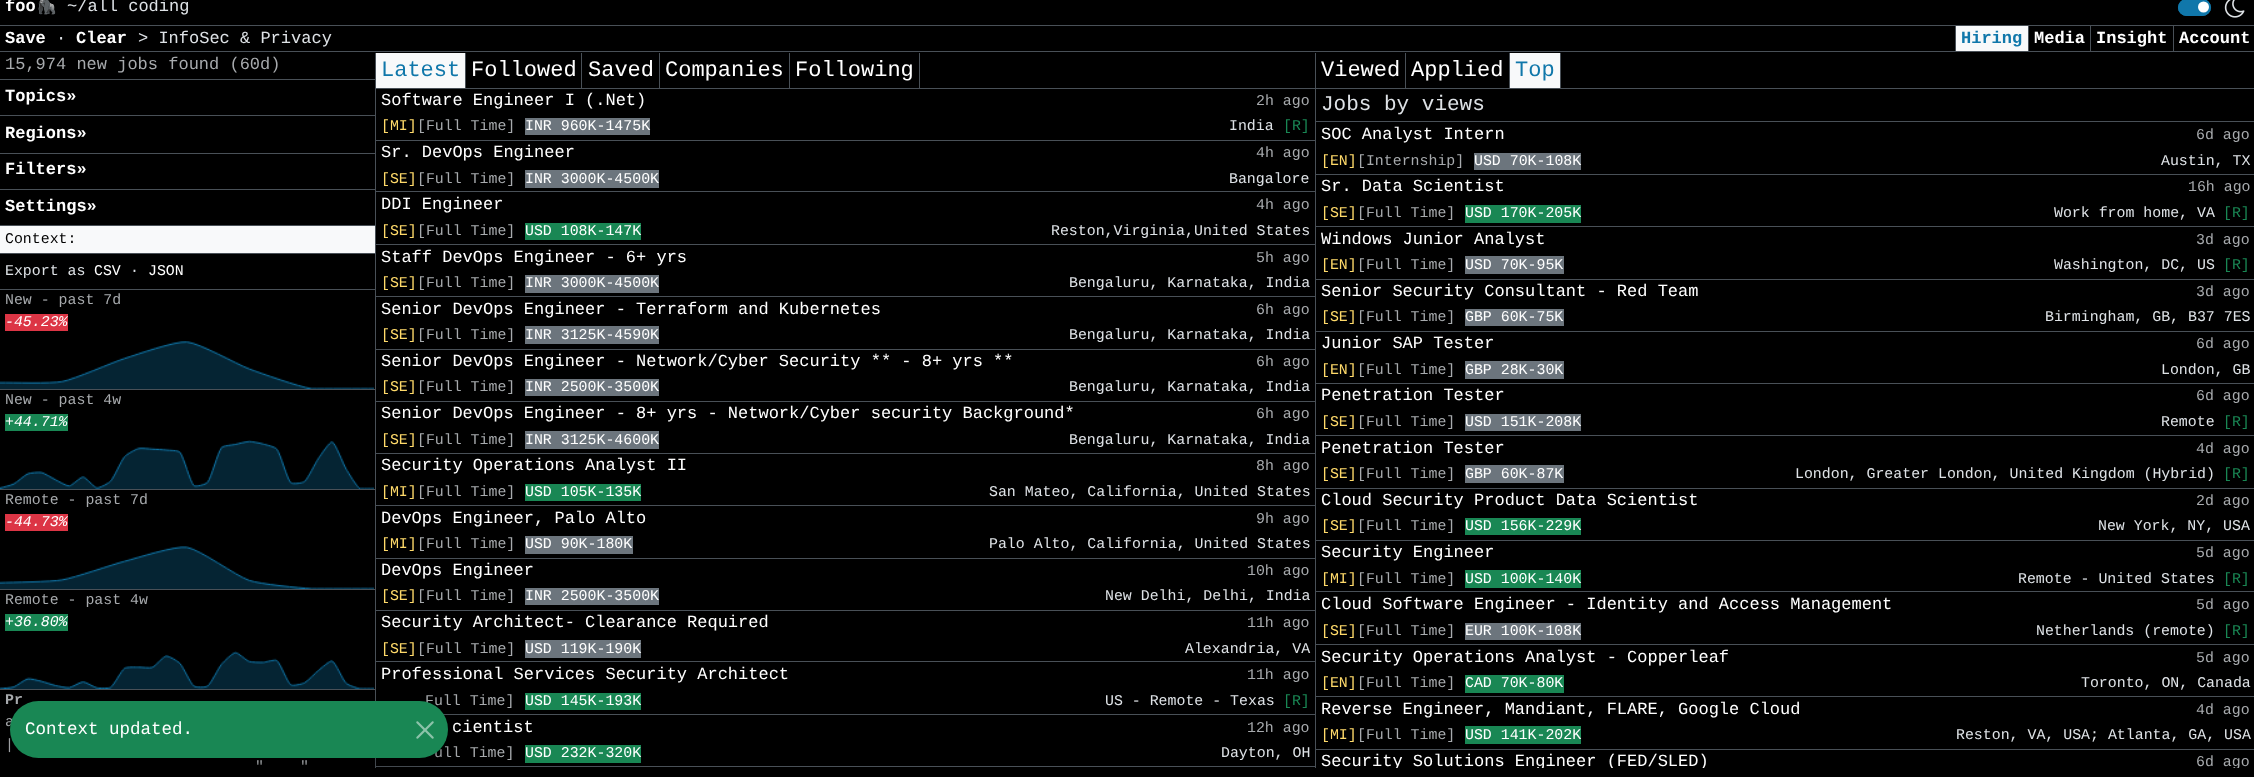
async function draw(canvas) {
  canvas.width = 2254
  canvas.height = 777
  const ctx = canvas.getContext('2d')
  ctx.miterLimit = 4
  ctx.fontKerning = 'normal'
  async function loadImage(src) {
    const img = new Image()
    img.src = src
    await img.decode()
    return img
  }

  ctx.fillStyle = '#000'
  ctx.fillRect(0, 0, 2254, 777)
  ctx.fillStyle = '#495057'
  ctx.fillRect(0, 25, 2254, 1)
  ctx.font = 'bold 17px Liberation Mono'
  ctx.fillStyle = '#fff'
  ctx.fillText('foo', 5, 11)
  ctx.font = 'bold 17px Noto Color Emoji'
  ctx.fillText('🦍', 36, 11)
  ctx.font = '17px Liberation Mono'
  ctx.fillStyle = '#dee2e6'
  ctx.fillText('~/all coding', 67, 11)
  ctx.fillStyle = '#1077aa'
  ctx.beginPath()
  ctx.roundRect(2178, -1, 33, 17, 8.5)
  ctx.fill()
  ctx.fillStyle = '#fff'
  ctx.beginPath()
  ctx.arc(2203.5, 7, 5.5, 0, 2 * Math.PI)
  ctx.fill()
  ctx.beginPath()
  ctx.roundRect(2178.5, -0.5, 32, 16, 8)
  ctx.strokeStyle = '#1077aa'
  ctx.stroke()
  ctx.drawImage(await loadImage('image0.png'), 2224, 0, 21, 18)
  ctx.fillStyle = '#495057'
  ctx.fillRect(0, 51, 2254, 1)
  ctx.font = 'bold 17px Liberation Mono'
  ctx.fillStyle = '#fff'
  ctx.fillText('Save', 5, 43)
  ctx.font = '17px Liberation Mono'
  ctx.fillStyle = '#dee2e6'
  ctx.fillText('·', 56, 43)
  ctx.font = 'bold 17px Liberation Mono'
  ctx.fillStyle = '#fff'
  ctx.fillText('Clear', 76, 43)
  ctx.font = '17px Liberation Mono'
  ctx.fillStyle = '#dee2e6'
  ctx.fillText('> InfoSec & Privacy', 138, 43)
  ctx.fillStyle = '#f8f9fa'
  ctx.fillRect(1956, 26, 72, 25)
  ctx.fillStyle = '#495057'
  ctx.fillRect(1955, 26, 1, 25)
  ctx.font = 'bold 17px Liberation Mono'
  ctx.fillStyle = '#1077aa'
  ctx.fillText('Hiring', 1961, 43)
  ctx.fillStyle = '#495057'
  ctx.fillRect(2028, 26, 1, 25)
  ctx.fillStyle = '#fff'
  ctx.fillText('Media', 2034, 43)
  ctx.fillStyle = '#495057'
  ctx.fillRect(2090, 26, 1, 25)
  ctx.fillStyle = '#fff'
  ctx.fillText('Insight', 2096, 43)
  ctx.fillStyle = '#495057'
  ctx.fillRect(2173, 26, 1, 25)
  ctx.fillStyle = '#fff'
  ctx.fillText('Account', 2179, 43)
  ctx.fillStyle = '#495057'
  ctx.fillRect(375, 53, 1, 715)
  ctx.fillRect(0, 79, 375, 1)
  ctx.font = '17px Liberation Mono'
  ctx.fillStyle = '#a7aaad'
  ctx.fillText('15,974 new jobs found (60d)', 5, 69)
  ctx.fillStyle = '#495057'
  ctx.fillRect(0, 115, 375, 1)
  ctx.font = 'bold 17px Liberation Mono'
  ctx.fillStyle = '#fff'
  ctx.fillText('Topics»', 5, 101)
  ctx.fillStyle = '#495057'
  ctx.fillRect(0, 153, 375, 1)
  ctx.fillStyle = '#fff'
  ctx.fillText('Regions»', 5, 138)
  ctx.fillStyle = '#495057'
  ctx.fillRect(0, 189, 375, 1)
  ctx.fillStyle = '#fff'
  ctx.fillText('Filters»', 5, 174)
  ctx.fillStyle = '#495057'
  ctx.fillRect(0, 225, 375, 1)
  ctx.fillStyle = '#fff'
  ctx.fillText('Settings»', 5, 211)
  ctx.fillStyle = '#f8f9fa'
  ctx.fillRect(0, 226, 375, 27)
  ctx.fillStyle = '#495057'
  ctx.fillRect(0, 253, 375, 1)
  ctx.font = '14.9px Liberation Mono'
  ctx.fillStyle = '#000'
  ctx.fillText('Context:', 5, 243)
  ctx.fillStyle = '#495057'
  ctx.fillRect(0, 289, 375, 1)
  ctx.fillStyle = '#dee2e6'
  ctx.fillText('Export as', 5, 275)
  ctx.fillStyle = '#fff'
  ctx.fillText('CSV', 94, 275)
  ctx.fillStyle = '#dee2e6'
  ctx.fillText('·', 130, 275)
  ctx.fillStyle = '#fff'
  ctx.fillText('JSON', 148, 275)
  ctx.fillStyle = '#a7aaad'
  ctx.fillText('New - past 7d', 5, 304)
  ctx.fillStyle = '#dc3545'
  ctx.fillRect(5, 314, 63, 17)
  ctx.font = 'italic 14.9px Liberation Mono'
  ctx.fillStyle = '#fff'
  ctx.fillText('-45.23%', 5, 326)
  ctx.fillStyle = '#495057'
  ctx.fillRect(0, 389, 375, 1)
  ctx.drawImage(await loadImage('image1.png'), 0, 341, 374, 48)
  ctx.font = '14.9px Liberation Mono'
  ctx.fillStyle = '#a7aaad'
  ctx.fillText('New - past 4w', 5, 404)
  ctx.fillStyle = '#198754'
  ctx.fillRect(5, 414, 63, 17)
  ctx.font = 'italic 14.9px Liberation Mono'
  ctx.fillStyle = '#fff'
  ctx.fillText('+44.71%', 5, 426)
  ctx.fillStyle = '#495057'
  ctx.fillRect(0, 489, 375, 1)
  ctx.drawImage(await loadImage('image2.png'), 0, 440, 374, 49)
  ctx.font = '14.9px Liberation Mono'
  ctx.fillStyle = '#a7aaad'
  ctx.fillText('Remote - past 7d', 5, 504)
  ctx.fillStyle = '#dc3545'
  ctx.fillRect(5, 514, 63, 17)
  ctx.font = 'italic 14.9px Liberation Mono'
  ctx.fillStyle = '#fff'
  ctx.fillText('-44.73%', 5, 526)
  ctx.fillStyle = '#495057'
  ctx.fillRect(0, 589, 375, 1)
  ctx.drawImage(await loadImage('image3.png'), 0, 546, 374, 43)
  ctx.font = '14.9px Liberation Mono'
  ctx.fillStyle = '#a7aaad'
  ctx.fillText('Remote - past 4w', 5, 604)
  ctx.fillStyle = '#198754'
  ctx.fillRect(5, 614, 63, 17)
  ctx.font = 'italic 14.9px Liberation Mono'
  ctx.fillStyle = '#fff'
  ctx.fillText('+36.80%', 5, 626)
  ctx.fillStyle = '#495057'
  ctx.fillRect(0, 689, 375, 1)
  ctx.drawImage(await loadImage('image4.png'), 0, 651, 374, 38)
  ctx.font = 'bold 14.9px Liberation Mono'
  ctx.fillStyle = '#a7aaad'
  ctx.fillText('Pr', 5, 704)
  ctx.font = '14.9px Liberation Mono'
  ctx.fillText('a', 5, 726)
  ctx.fillText('|', 5, 749)
  ctx.fillText('"', 255, 771)
  ctx.fillText('"', 300, 771)
  ctx.fillStyle = '#495057'
  ctx.fillRect(1315, 53, 1, 715)
  ctx.fillRect(376, 88, 939, 1)
  ctx.fillStyle = '#f8f9fa'
  ctx.fillRect(376, 53, 89, 35)
  ctx.fillStyle = '#495057'
  ctx.fillRect(465, 53, 1, 35)
  ctx.font = '22px Liberation Mono'
  ctx.fillStyle = '#1077aa'
  ctx.fillText('Latest', 381, 76)
  ctx.fillStyle = '#495057'
  ctx.fillRect(581, 53, 1, 35)
  ctx.fillStyle = '#fff'
  ctx.fillText('Followed', 471, 76)
  ctx.fillStyle = '#495057'
  ctx.fillRect(659, 53, 1, 35)
  ctx.fillStyle = '#fff'
  ctx.fillText('Saved', 588, 76)
  ctx.fillStyle = '#495057'
  ctx.fillRect(789, 53, 1, 35)
  ctx.fillStyle = '#fff'
  ctx.fillText('Companies', 665, 76)
  ctx.fillStyle = '#495057'
  ctx.fillRect(919, 53, 1, 35)
  ctx.fillStyle = '#fff'
  ctx.fillText('Following', 795, 76)
  ctx.fillStyle = '#495057'
  ctx.fillRect(376, 140, 939, 1)
  ctx.font = '17px Liberation Mono'
  ctx.fillStyle = '#fff'
  ctx.fillText('Software Engineer I (.Net)', 381, 105)
  ctx.font = '14.9px Liberation Mono'
  ctx.fillStyle = '#a7aaad'
  ctx.fillText('2h ago', 1256, 105)
  ctx.fillStyle = '#ffda6a'
  ctx.fillText('[MI]', 381, 130)
  ctx.fillStyle = '#a7aaad'
  ctx.fillText('[Full Time]', 417, 130)
  ctx.fillStyle = '#6c757d'
  ctx.fillRect(525, 118, 125, 17)
  ctx.fillStyle = '#fff'
  ctx.fillText('INR 960K-1475K', 525, 130)
  ctx.fillStyle = '#dee2e6'
  ctx.fillText('India', 1229, 130)
  ctx.fillStyle = '#198754'
  ctx.fillText('[R]', 1283, 130)
  ctx.fillStyle = '#495057'
  ctx.fillRect(376, 191, 939, 1)
  ctx.font = '17px Liberation Mono'
  ctx.fillStyle = '#fff'
  ctx.fillText('Sr. DevOps Engineer', 381, 157)
  ctx.font = '14.9px Liberation Mono'
  ctx.fillStyle = '#a7aaad'
  ctx.fillText('4h ago', 1256, 157)
  ctx.fillStyle = '#ffda6a'
  ctx.fillText('[SE]', 381, 183)
  ctx.fillStyle = '#a7aaad'
  ctx.fillText('[Full Time]', 417, 183)
  ctx.fillStyle = '#6c757d'
  ctx.fillRect(525, 170, 134, 18)
  ctx.fillStyle = '#fff'
  ctx.fillText('INR 3000K-4500K', 525, 183)
  ctx.fillStyle = '#dee2e6'
  ctx.fillText('Bangalore', 1229, 183)
  ctx.fillStyle = '#495057'
  ctx.fillRect(376, 244, 939, 1)
  ctx.font = '17px Liberation Mono'
  ctx.fillStyle = '#fff'
  ctx.fillText('DDI Engineer', 381, 209)
  ctx.font = '14.9px Liberation Mono'
  ctx.fillStyle = '#a7aaad'
  ctx.fillText('4h ago', 1256, 209)
  ctx.fillStyle = '#ffda6a'
  ctx.fillText('[SE]', 381, 235)
  ctx.fillStyle = '#a7aaad'
  ctx.fillText('[Full Time]', 417, 235)
  ctx.fillStyle = '#198754'
  ctx.fillRect(525, 223, 116, 17)
  ctx.fillStyle = '#fff'
  ctx.fillText('USD 108K-147K', 525, 235)
  ctx.fillStyle = '#dee2e6'
  ctx.fillText('Reston,Virginia,United States', 1051, 235)
  ctx.fillStyle = '#495057'
  ctx.fillRect(376, 296, 939, 1)
  ctx.font = '17px Liberation Mono'
  ctx.fillStyle = '#fff'
  ctx.fillText('Staff DevOps Engineer - 6+ yrs', 381, 262)
  ctx.font = '14.9px Liberation Mono'
  ctx.fillStyle = '#a7aaad'
  ctx.fillText('5h ago', 1256, 262)
  ctx.fillStyle = '#ffda6a'
  ctx.fillText('[SE]', 381, 287)
  ctx.fillStyle = '#a7aaad'
  ctx.fillText('[Full Time]', 417, 287)
  ctx.fillStyle = '#6c757d'
  ctx.fillRect(525, 275, 134, 18)
  ctx.fillStyle = '#fff'
  ctx.fillText('INR 3000K-4500K', 525, 287)
  ctx.fillStyle = '#dee2e6'
  ctx.fillText('Bengaluru, Karnataka, India', 1069, 287)
  ctx.fillStyle = '#495057'
  ctx.fillRect(376, 349, 939, 1)
  ctx.font = '17px Liberation Mono'
  ctx.fillStyle = '#fff'
  ctx.fillText('Senior DevOps Engineer - Terraform and Kubernetes', 381, 314)
  ctx.font = '14.9px Liberation Mono'
  ctx.fillStyle = '#a7aaad'
  ctx.fillText('6h ago', 1256, 314)
  ctx.fillStyle = '#ffda6a'
  ctx.fillText('[SE]', 381, 339)
  ctx.fillStyle = '#a7aaad'
  ctx.fillText('[Full Time]', 417, 339)
  ctx.fillStyle = '#6c757d'
  ctx.fillRect(525, 326, 134, 18)
  ctx.fillStyle = '#fff'
  ctx.fillText('INR 3125K-4590K', 525, 339)
  ctx.fillStyle = '#dee2e6'
  ctx.fillText('Bengaluru, Karnataka, India', 1069, 339)
  ctx.fillStyle = '#495057'
  ctx.fillRect(376, 401, 939, 1)
  ctx.font = '17px Liberation Mono'
  ctx.fillStyle = '#fff'
  ctx.fillText('Senior DevOps Engineer - Network/Cyber Security ** - 8+ yrs **', 381, 366)
  ctx.font = '14.9px Liberation Mono'
  ctx.fillStyle = '#a7aaad'
  ctx.fillText('6h ago', 1256, 366)
  ctx.fillStyle = '#ffda6a'
  ctx.fillText('[SE]', 381, 391)
  ctx.fillStyle = '#a7aaad'
  ctx.fillText('[Full Time]', 417, 391)
  ctx.fillStyle = '#6c757d'
  ctx.fillRect(525, 379, 134, 17)
  ctx.fillStyle = '#fff'
  ctx.fillText('INR 2500K-3500K', 525, 391)
  ctx.fillStyle = '#dee2e6'
  ctx.fillText('Bengaluru, Karnataka, India', 1069, 391)
  ctx.fillStyle = '#495057'
  ctx.fillRect(376, 453, 939, 1)
  ctx.font = '17px Liberation Mono'
  ctx.fillStyle = '#fff'
  ctx.fillText('Senior DevOps Engineer - 8+ yrs - Network/Cyber security Background*', 381, 418)
  ctx.font = '14.9px Liberation Mono'
  ctx.fillStyle = '#a7aaad'
  ctx.fillText('6h ago', 1256, 418)
  ctx.fillStyle = '#ffda6a'
  ctx.fillText('[SE]', 381, 444)
  ctx.fillStyle = '#a7aaad'
  ctx.fillText('[Full Time]', 417, 444)
  ctx.fillStyle = '#6c757d'
  ctx.fillRect(525, 431, 134, 18)
  ctx.fillStyle = '#fff'
  ctx.fillText('INR 3125K-4600K', 525, 444)
  ctx.fillStyle = '#dee2e6'
  ctx.fillText('Bengaluru, Karnataka, India', 1069, 444)
  ctx.fillStyle = '#495057'
  ctx.fillRect(376, 505, 939, 1)
  ctx.font = '17px Liberation Mono'
  ctx.fillStyle = '#fff'
  ctx.fillText('Security Operations Analyst II', 381, 470)
  ctx.font = '14.9px Liberation Mono'
  ctx.fillStyle = '#a7aaad'
  ctx.fillText('8h ago', 1256, 470)
  ctx.fillStyle = '#ffda6a'
  ctx.fillText('[MI]', 381, 496)
  ctx.fillStyle = '#a7aaad'
  ctx.fillText('[Full Time]', 417, 496)
  ctx.fillStyle = '#198754'
  ctx.fillRect(525, 484, 116, 17)
  ctx.fillStyle = '#fff'
  ctx.fillText('USD 105K-135K', 525, 496)
  ctx.fillStyle = '#dee2e6'
  ctx.fillText('San Mateo, California, United States', 989, 496)
  ctx.fillStyle = '#495057'
  ctx.fillRect(376, 558, 939, 1)
  ctx.font = '17px Liberation Mono'
  ctx.fillStyle = '#fff'
  ctx.fillText('DevOps Engineer, Palo Alto', 381, 523)
  ctx.font = '14.9px Liberation Mono'
  ctx.fillStyle = '#a7aaad'
  ctx.fillText('9h ago', 1256, 523)
  ctx.fillStyle = '#ffda6a'
  ctx.fillText('[MI]', 381, 548)
  ctx.fillStyle = '#a7aaad'
  ctx.fillText('[Full Time]', 417, 548)
  ctx.fillStyle = '#6c757d'
  ctx.fillRect(525, 536, 108, 18)
  ctx.fillStyle = '#fff'
  ctx.fillText('USD 90K-180K', 525, 548)
  ctx.fillStyle = '#dee2e6'
  ctx.fillText('Palo Alto, California, United States', 989, 548)
  ctx.fillStyle = '#495057'
  ctx.fillRect(376, 610, 939, 1)
  ctx.font = '17px Liberation Mono'
  ctx.fillStyle = '#fff'
  ctx.fillText('DevOps Engineer', 381, 575)
  ctx.font = '14.9px Liberation Mono'
  ctx.fillStyle = '#a7aaad'
  ctx.fillText('10h ago', 1247, 575)
  ctx.fillStyle = '#ffda6a'
  ctx.fillText('[SE]', 381, 600)
  ctx.fillStyle = '#a7aaad'
  ctx.fillText('[Full Time]', 417, 600)
  ctx.fillStyle = '#6c757d'
  ctx.fillRect(525, 588, 134, 17)
  ctx.fillStyle = '#fff'
  ctx.fillText('INR 2500K-3500K', 525, 600)
  ctx.fillStyle = '#dee2e6'
  ctx.fillText('New Delhi, Delhi, India', 1105, 600)
  ctx.fillStyle = '#495057'
  ctx.fillRect(376, 661, 939, 1)
  ctx.font = '17px Liberation Mono'
  ctx.fillStyle = '#fff'
  ctx.fillText('Security Architect- Clearance Required', 381, 627)
  ctx.font = '14.9px Liberation Mono'
  ctx.fillStyle = '#a7aaad'
  ctx.fillText('11h ago', 1247, 627)
  ctx.fillStyle = '#ffda6a'
  ctx.fillText('[SE]', 381, 653)
  ctx.fillStyle = '#a7aaad'
  ctx.fillText('[Full Time]', 417, 653)
  ctx.fillStyle = '#6c757d'
  ctx.fillRect(525, 640, 116, 18)
  ctx.fillStyle = '#fff'
  ctx.fillText('USD 119K-190K', 525, 653)
  ctx.fillStyle = '#dee2e6'
  ctx.fillText('Alexandria, VA', 1185, 653)
  ctx.fillStyle = '#495057'
  ctx.fillRect(443, 714, 872, 1)
  ctx.font = '17px Liberation Mono'
  ctx.fillStyle = '#fff'
  ctx.fillText('Professional Services Security Architect', 381, 679)
  ctx.font = '14.9px Liberation Mono'
  ctx.fillStyle = '#a7aaad'
  ctx.fillText('11h ago', 1247, 679)
  ctx.fillText('Full Time]', 425, 705)
  ctx.fillStyle = '#198754'
  ctx.fillRect(525, 693, 116, 17)
  ctx.fillStyle = '#fff'
  ctx.fillText('USD 145K-193K', 525, 705)
  ctx.fillStyle = '#dee2e6'
  ctx.fillText('US - Remote - Texas', 1105, 705)
  ctx.fillStyle = '#198754'
  ctx.fillText('[R]', 1283, 705)
  ctx.fillStyle = '#495057'
  ctx.fillRect(376, 766, 939, 1)
  ctx.font = '17px Liberation Mono'
  ctx.fillStyle = '#fff'
  ctx.fillText('cientist', 452, 732)
  ctx.font = '14.9px Liberation Mono'
  ctx.fillStyle = '#a7aaad'
  ctx.fillText('12h ago', 1247, 732)
  ctx.fillText('ull Time]', 434, 757)
  ctx.fillStyle = '#198754'
  ctx.fillRect(525, 745, 116, 18)
  ctx.fillStyle = '#fff'
  ctx.fillText('USD 232K-320K', 525, 757)
  ctx.fillStyle = '#dee2e6'
  ctx.fillText('Dayton, OH', 1221, 757)
  ctx.fillStyle = '#495057'
  ctx.fillRect(1316, 88, 938, 1)
  ctx.fillRect(1405, 53, 1, 35)
  ctx.font = '22px Liberation Mono'
  ctx.fillStyle = '#fff'
  ctx.fillText('Viewed', 1321, 76)
  ctx.fillStyle = '#495057'
  ctx.fillRect(1509, 53, 1, 35)
  ctx.fillStyle = '#fff'
  ctx.fillText('Applied', 1411, 76)
  ctx.fillStyle = '#f8f9fa'
  ctx.fillRect(1510, 53, 50, 35)
  ctx.fillStyle = '#495057'
  ctx.fillRect(1560, 53, 1, 35)
  ctx.fillStyle = '#1077aa'
  ctx.fillText('Top', 1515, 76)
  ctx.fillStyle = '#495057'
  ctx.fillRect(1316, 121, 938, 1)
  ctx.font = '21px Liberation Mono'
  ctx.fillStyle = '#dee2e6'
  ctx.fillText('Jobs by views', 1321, 110)
  ctx.fillStyle = '#495057'
  ctx.fillRect(1316, 174, 938, 1)
  ctx.font = '17px Liberation Mono'
  ctx.fillStyle = '#fff'
  ctx.fillText('SOC Analyst Intern', 1321, 139)
  ctx.font = '14.9px Liberation Mono'
  ctx.fillStyle = '#a7aaad'
  ctx.fillText('6d ago', 2196, 139)
  ctx.fillStyle = '#ffda6a'
  ctx.fillText('[EN]', 1321, 165)
  ctx.fillStyle = '#a7aaad'
  ctx.fillText('[Internship]', 1357, 165)
  ctx.fillStyle = '#6c757d'
  ctx.fillRect(1474, 153, 107, 17)
  ctx.fillStyle = '#fff'
  ctx.fillText('USD 70K-108K', 1474, 165)
  ctx.fillStyle = '#dee2e6'
  ctx.fillText('Austin, TX', 2161, 165)
  ctx.fillStyle = '#495057'
  ctx.fillRect(1316, 226, 938, 1)
  ctx.font = '17px Liberation Mono'
  ctx.fillStyle = '#fff'
  ctx.fillText('Sr. Data Scientist', 1321, 191)
  ctx.font = '14.9px Liberation Mono'
  ctx.fillStyle = '#a7aaad'
  ctx.fillText('16h ago', 2188, 191)
  ctx.fillStyle = '#ffda6a'
  ctx.fillText('[SE]', 1321, 217)
  ctx.fillStyle = '#a7aaad'
  ctx.fillText('[Full Time]', 1357, 217)
  ctx.fillStyle = '#198754'
  ctx.fillRect(1465, 205, 116, 18)
  ctx.fillStyle = '#fff'
  ctx.fillText('USD 170K-205K', 1465, 217)
  ctx.fillStyle = '#dee2e6'
  ctx.fillText('Work from home, VA', 2054, 217)
  ctx.fillStyle = '#198754'
  ctx.fillText('[R]', 2223, 217)
  ctx.fillStyle = '#495057'
  ctx.fillRect(1316, 279, 938, 1)
  ctx.font = '17px Liberation Mono'
  ctx.fillStyle = '#fff'
  ctx.fillText('Windows Junior Analyst', 1321, 244)
  ctx.font = '14.9px Liberation Mono'
  ctx.fillStyle = '#a7aaad'
  ctx.fillText('3d ago', 2196, 244)
  ctx.fillStyle = '#ffda6a'
  ctx.fillText('[EN]', 1321, 269)
  ctx.fillStyle = '#a7aaad'
  ctx.fillText('[Full Time]', 1357, 269)
  ctx.fillStyle = '#6c757d'
  ctx.fillRect(1465, 256, 99, 18)
  ctx.fillStyle = '#fff'
  ctx.fillText('USD 70K-95K', 1465, 269)
  ctx.fillStyle = '#dee2e6'
  ctx.fillText('Washington, DC, US', 2054, 269)
  ctx.fillStyle = '#198754'
  ctx.fillText('[R]', 2223, 269)
  ctx.fillStyle = '#495057'
  ctx.fillRect(1316, 331, 938, 1)
  ctx.font = '17px Liberation Mono'
  ctx.fillStyle = '#fff'
  ctx.fillText('Senior Security Consultant - Red Team', 1321, 296)
  ctx.font = '14.9px Liberation Mono'
  ctx.fillStyle = '#a7aaad'
  ctx.fillText('3d ago', 2196, 296)
  ctx.fillStyle = '#ffda6a'
  ctx.fillText('[SE]', 1321, 321)
  ctx.fillStyle = '#a7aaad'
  ctx.fillText('[Full Time]', 1357, 321)
  ctx.fillStyle = '#6c757d'
  ctx.fillRect(1465, 309, 99, 17)
  ctx.fillStyle = '#fff'
  ctx.fillText('GBP 60K-75K', 1465, 321)
  ctx.fillStyle = '#dee2e6'
  ctx.fillText('Birmingham, GB, B37 7ES', 2045, 321)
  ctx.fillStyle = '#495057'
  ctx.fillRect(1316, 383, 938, 1)
  ctx.font = '17px Liberation Mono'
  ctx.fillStyle = '#fff'
  ctx.fillText('Junior SAP Tester', 1321, 348)
  ctx.font = '14.9px Liberation Mono'
  ctx.fillStyle = '#a7aaad'
  ctx.fillText('6d ago', 2196, 348)
  ctx.fillStyle = '#ffda6a'
  ctx.fillText('[EN]', 1321, 374)
  ctx.fillStyle = '#a7aaad'
  ctx.fillText('[Full Time]', 1357, 374)
  ctx.fillStyle = '#6c757d'
  ctx.fillRect(1465, 361, 99, 18)
  ctx.fillStyle = '#fff'
  ctx.fillText('GBP 28K-30K', 1465, 374)
  ctx.fillStyle = '#dee2e6'
  ctx.fillText('London, GB', 2161, 374)
  ctx.fillStyle = '#495057'
  ctx.fillRect(1316, 435, 938, 1)
  ctx.font = '17px Liberation Mono'
  ctx.fillStyle = '#fff'
  ctx.fillText('Penetration Tester', 1321, 400)
  ctx.font = '14.9px Liberation Mono'
  ctx.fillStyle = '#a7aaad'
  ctx.fillText('6d ago', 2196, 400)
  ctx.fillStyle = '#ffda6a'
  ctx.fillText('[SE]', 1321, 426)
  ctx.fillStyle = '#a7aaad'
  ctx.fillText('[Full Time]', 1357, 426)
  ctx.fillStyle = '#6c757d'
  ctx.fillRect(1465, 414, 116, 17)
  ctx.fillStyle = '#fff'
  ctx.fillText('USD 151K-208K', 1465, 426)
  ctx.fillStyle = '#dee2e6'
  ctx.fillText('Remote', 2161, 426)
  ctx.fillStyle = '#198754'
  ctx.fillText('[R]', 2223, 426)
  ctx.fillStyle = '#495057'
  ctx.fillRect(1316, 488, 938, 1)
  ctx.font = '17px Liberation Mono'
  ctx.fillStyle = '#fff'
  ctx.fillText('Penetration Tester', 1321, 453)
  ctx.font = '14.9px Liberation Mono'
  ctx.fillStyle = '#a7aaad'
  ctx.fillText('4d ago', 2196, 453)
  ctx.fillStyle = '#ffda6a'
  ctx.fillText('[SE]', 1321, 478)
  ctx.fillStyle = '#a7aaad'
  ctx.fillText('[Full Time]', 1357, 478)
  ctx.fillStyle = '#6c757d'
  ctx.fillRect(1465, 465, 99, 18)
  ctx.fillStyle = '#fff'
  ctx.fillText('GBP 60K-87K', 1465, 478)
  ctx.fillStyle = '#dee2e6'
  ctx.fillText('London, Greater London, United Kingdom (Hybrid)', 1795, 478)
  ctx.fillStyle = '#198754'
  ctx.fillText('[R]', 2223, 478)
  ctx.fillStyle = '#495057'
  ctx.fillRect(1316, 540, 938, 1)
  ctx.font = '17px Liberation Mono'
  ctx.fillStyle = '#fff'
  ctx.fillText('Cloud Security Product Data Scientist', 1321, 505)
  ctx.font = '14.9px Liberation Mono'
  ctx.fillStyle = '#a7aaad'
  ctx.fillText('2d ago', 2196, 505)
  ctx.fillStyle = '#ffda6a'
  ctx.fillText('[SE]', 1321, 530)
  ctx.fillStyle = '#a7aaad'
  ctx.fillText('[Full Time]', 1357, 530)
  ctx.fillStyle = '#198754'
  ctx.fillRect(1465, 518, 116, 17)
  ctx.fillStyle = '#fff'
  ctx.fillText('USD 156K-229K', 1465, 530)
  ctx.fillStyle = '#dee2e6'
  ctx.fillText('New York, NY, USA', 2098, 530)
  ctx.fillStyle = '#495057'
  ctx.fillRect(1316, 591, 938, 1)
  ctx.font = '17px Liberation Mono'
  ctx.fillStyle = '#fff'
  ctx.fillText('Security Engineer', 1321, 557)
  ctx.font = '14.9px Liberation Mono'
  ctx.fillStyle = '#a7aaad'
  ctx.fillText('5d ago', 2196, 557)
  ctx.fillStyle = '#ffda6a'
  ctx.fillText('[MI]', 1321, 583)
  ctx.fillStyle = '#a7aaad'
  ctx.fillText('[Full Time]', 1357, 583)
  ctx.fillStyle = '#198754'
  ctx.fillRect(1465, 570, 116, 18)
  ctx.fillStyle = '#fff'
  ctx.fillText('USD 100K-140K', 1465, 583)
  ctx.fillStyle = '#dee2e6'
  ctx.fillText('Remote - United States', 2018, 583)
  ctx.fillStyle = '#198754'
  ctx.fillText('[R]', 2223, 583)
  ctx.fillStyle = '#495057'
  ctx.fillRect(1316, 644, 938, 1)
  ctx.font = '17px Liberation Mono'
  ctx.fillStyle = '#fff'
  ctx.fillText('Cloud Software Engineer - Identity and Access Management', 1321, 609)
  ctx.font = '14.9px Liberation Mono'
  ctx.fillStyle = '#a7aaad'
  ctx.fillText('5d ago', 2196, 609)
  ctx.fillStyle = '#ffda6a'
  ctx.fillText('[SE]', 1321, 635)
  ctx.fillStyle = '#a7aaad'
  ctx.fillText('[Full Time]', 1357, 635)
  ctx.fillStyle = '#6c757d'
  ctx.fillRect(1465, 623, 116, 17)
  ctx.fillStyle = '#fff'
  ctx.fillText('EUR 100K-108K', 1465, 635)
  ctx.fillStyle = '#dee2e6'
  ctx.fillText('Netherlands (remote)', 2036, 635)
  ctx.fillStyle = '#198754'
  ctx.fillText('[R]', 2223, 635)
  ctx.fillStyle = '#495057'
  ctx.fillRect(1316, 696, 938, 1)
  ctx.font = '17px Liberation Mono'
  ctx.fillStyle = '#fff'
  ctx.fillText('Security Operations Analyst - Copperleaf', 1321, 662)
  ctx.font = '14.9px Liberation Mono'
  ctx.fillStyle = '#a7aaad'
  ctx.fillText('5d ago', 2196, 662)
  ctx.fillStyle = '#ffda6a'
  ctx.fillText('[EN]', 1321, 687)
  ctx.fillStyle = '#a7aaad'
  ctx.fillText('[Full Time]', 1357, 687)
  ctx.fillStyle = '#198754'
  ctx.fillRect(1465, 675, 99, 18)
  ctx.fillStyle = '#fff'
  ctx.fillText('CAD 70K-80K', 1465, 687)
  ctx.fillStyle = '#dee2e6'
  ctx.fillText('Toronto, ON, Canada', 2081, 687)
  ctx.fillStyle = '#495057'
  ctx.fillRect(1316, 749, 938, 1)
  ctx.font = '17px Liberation Mono'
  ctx.fillStyle = '#fff'
  ctx.fillText('Reverse Engineer, Mandiant, FLARE, Google Cloud', 1321, 714)
  ctx.font = '14.9px Liberation Mono'
  ctx.fillStyle = '#a7aaad'
  ctx.fillText('4d ago', 2196, 714)
  ctx.fillStyle = '#ffda6a'
  ctx.fillText('[MI]', 1321, 739)
  ctx.fillStyle = '#a7aaad'
  ctx.fillText('[Full Time]', 1357, 739)
  ctx.fillStyle = '#198754'
  ctx.fillRect(1465, 726, 116, 18)
  ctx.fillStyle = '#fff'
  ctx.fillText('USD 141K-202K', 1465, 739)
  ctx.fillStyle = '#dee2e6'
  ctx.fillText('Reston, VA, USA; Atlanta, GA, USA', 1956, 739)
  ctx.save()
  ctx.beginPath()
  ctx.rect(1316, 53, 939, 715)
  ctx.clip()
  ctx.font = '17px Liberation Mono'
  ctx.fillStyle = '#fff'
  ctx.fillText('Security Solutions Engineer (FED/SLED)', 1321, 766)
  ctx.font = '14.9px Liberation Mono'
  ctx.fillStyle = '#a7aaad'
  ctx.fillText('6d ago', 2196, 766)
  ctx.restore()
  ctx.fillStyle = '#00000026'
  ctx.filter = 'blur(10px)'
  ctx.beginPath()
  ctx.roundRect(10, 711, 438, 57, 28.5)
  ctx.fill()
  ctx.filter = 'none'
  ctx.fillStyle = '#198754'
  ctx.beginPath()
  ctx.roundRect(10, 701, 438, 57, 28.5)
  ctx.fill()
  ctx.font = '17.5px Liberation Mono'
  ctx.fillStyle = '#fff'
  ctx.fillText('Context updated.', 25, 734)
  ctx.drawImage(await loadImage('image5.png'), 416, 721, 18, 18)
}

draw(document.querySelector('canvas'))
